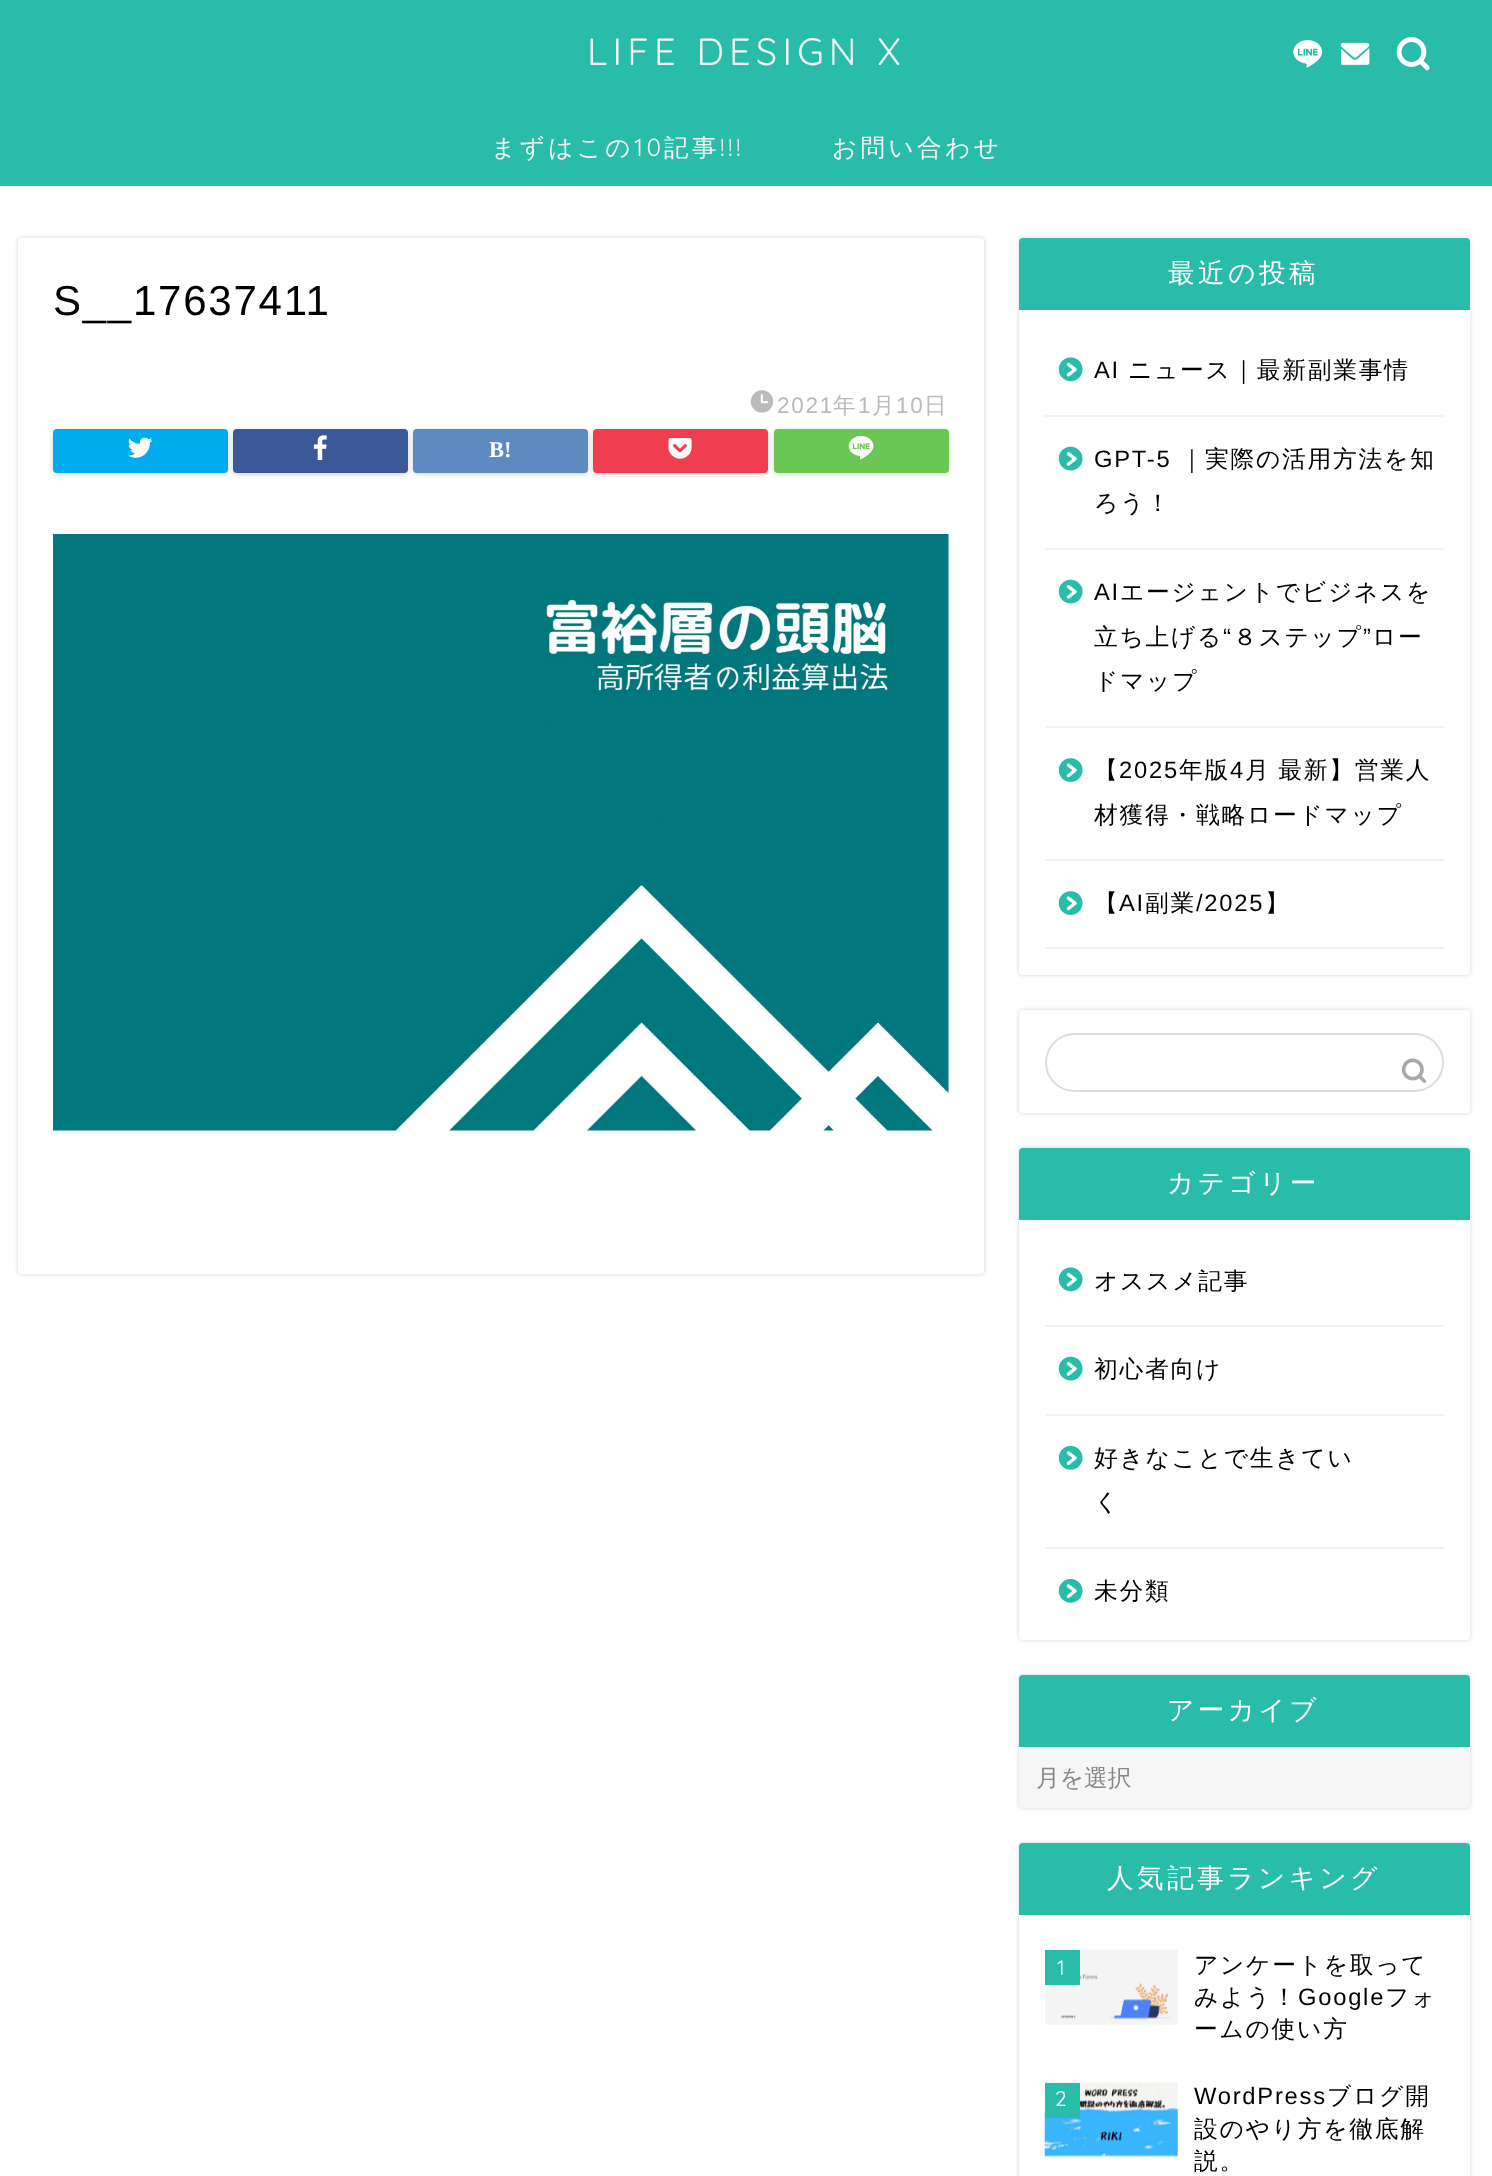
async function draw(canvas) {
  canvas.width = 1492
  canvas.height = 2176
  const ctx = canvas.getContext('2d')
  ctx.miterLimit = 4
  ctx.fontKerning = 'normal'
  async function loadImage(src) {
    const img = new Image()
    img.src = src
    await img.decode()
    return img
  }

  ctx.fillStyle = '#fff'
  ctx.fillRect(0, 0, 1492, 2176)
  ctx.fillStyle = '#29bca9'
  ctx.fillRect(0, 0, 1492, 186)
  ctx.letterSpacing = '5.25px'
  ctx.font = '300 38px Quicksand'
  ctx.fillStyle = '#f4f4f4'
  ctx.fillText('LIFE DESIGN X', 587, 65)
  ctx.drawImage(await loadImage('image0.png'), 1293, 40, 30, 28)
  ctx.drawImage(await loadImage('image1.png'), 1341, 42, 29, 23)
  ctx.drawImage(await loadImage('image2.png'), 1396, 37, 34, 34)
  ctx.letterSpacing = '3.5px'
  ctx.font = '500 24.5px WenQuanYi Zen Hei'
  ctx.fillText('まずはこの', 491, 156)
  ctx.font = '300 24.5px Quicksand'
  ctx.fillText('10', 634, 156)
  ctx.font = '500 24.5px WenQuanYi Zen Hei'
  ctx.fillText('記事', 664, 156)
  ctx.font = '300 24.5px Quicksand'
  ctx.fillText('!!!', 720, 156)
  ctx.font = '500 24.5px WenQuanYi Zen Hei'
  ctx.fillText('お問い合わせ', 832, 156)
  ctx.fillStyle = '#0000002e'
  ctx.filter = 'blur(2px)'
  ctx.beginPath()
  ctx.roundRect(18, 238, 966, 1036, 4)
  ctx.fill()
  ctx.filter = 'none'
  ctx.fillStyle = '#fff'
  ctx.beginPath()
  ctx.roundRect(18, 238, 966, 1036, 4)
  ctx.fill()
  ctx.letterSpacing = '1.75px'
  ctx.font = '42px Liberation Sans'
  ctx.fillStyle = '#000'
  ctx.fillText('S__17637411', 53, 315)
  ctx.drawImage(await loadImage('image3.png'), 750, 390, 24, 23)
  ctx.font = '22.5px Liberation Sans'
  ctx.fillStyle = '#bbb'
  ctx.fillText('2021', 777, 413)
  ctx.font = '500 22.5px WenQuanYi Zen Hei'
  ctx.fillText('年', 833, 413)
  ctx.font = '22.5px Liberation Sans'
  ctx.fillText('1', 858, 413)
  ctx.font = '500 22.5px WenQuanYi Zen Hei'
  ctx.fillText('月', 872, 413)
  ctx.font = '22.5px Liberation Sans'
  ctx.fillText('10', 896, 413)
  ctx.font = '500 22.5px WenQuanYi Zen Hei'
  ctx.fillText('日', 924, 413)
  ctx.fillStyle = '#0000002e'
  ctx.filter = 'blur(2.5px)'
  ctx.beginPath()
  ctx.roundRect(53, 431, 175, 43, 4)
  ctx.fill()
  ctx.filter = 'none'
  ctx.fillStyle = '#00acee'
  ctx.beginPath()
  ctx.roundRect(55, 431, 171, 40, 2)
  ctx.fill()
  ctx.strokeStyle = '#00acee'
  ctx.lineWidth = 4
  ctx.stroke()
  ctx.drawImage(await loadImage('image4.png'), 128, 437, 25, 21)
  ctx.fillStyle = '#0000002e'
  ctx.filter = 'blur(2.5px)'
  ctx.beginPath()
  ctx.roundRect(233, 431, 175, 43, 4)
  ctx.fill()
  ctx.filter = 'none'
  ctx.fillStyle = '#3b5998'
  ctx.beginPath()
  ctx.roundRect(235, 431, 171, 40, 2)
  ctx.fill()
  ctx.strokeStyle = '#3b5998'
  ctx.stroke()
  ctx.drawImage(await loadImage('image5.png'), 313, 435, 14, 26)
  ctx.fillStyle = '#0000002e'
  ctx.filter = 'blur(2.5px)'
  ctx.beginPath()
  ctx.roundRect(413, 431, 175, 43, 4)
  ctx.fill()
  ctx.filter = 'none'
  ctx.fillStyle = '#5d8ac1'
  ctx.beginPath()
  ctx.roundRect(415, 431, 171, 40, 2)
  ctx.fill()
  ctx.strokeStyle = '#5d8ac1'
  ctx.stroke()
  ctx.letterSpacing = '0px'
  ctx.font = 'bold 22.5px Liberation Serif'
  ctx.fillStyle = '#fff'
  ctx.fillText('B!', 489, 457)
  ctx.fillStyle = '#0000002e'
  ctx.filter = 'blur(2.5px)'
  ctx.beginPath()
  ctx.roundRect(593, 431, 175, 43, 4)
  ctx.fill()
  ctx.filter = 'none'
  ctx.fillStyle = '#f03e51'
  ctx.beginPath()
  ctx.roundRect(595, 431, 171, 40, 2)
  ctx.fill()
  ctx.strokeStyle = '#f03e51'
  ctx.stroke()
  ctx.drawImage(await loadImage('image6.png'), 668, 438, 24, 21)
  ctx.fillStyle = '#0000002e'
  ctx.filter = 'blur(2.5px)'
  ctx.beginPath()
  ctx.roundRect(774, 431, 175, 43, 4)
  ctx.fill()
  ctx.filter = 'none'
  ctx.fillStyle = '#6cc655'
  ctx.beginPath()
  ctx.roundRect(776, 431, 171, 40, 2)
  ctx.fill()
  ctx.strokeStyle = '#6cc655'
  ctx.stroke()
  ctx.drawImage(await loadImage('image7.png'), 848, 436, 26, 24)
  ctx.drawImage(await loadImage('image8.png'), 53, 534, 896, 597)
  ctx.fillStyle = '#0000002e'
  ctx.filter = 'blur(2px)'
  ctx.beginPath()
  ctx.roundRect(1019, 238, 451, 737, 4)
  ctx.fill()
  ctx.filter = 'none'
  ctx.fillStyle = '#fff'
  ctx.beginPath()
  ctx.roundRect(1019, 238, 451, 737, 4)
  ctx.fill()
  ctx.fillStyle = '#29bca9'
  ctx.beginPath()
  ctx.roundRect(1019, 238, 451, 72, [4, 4, 0, 0])
  ctx.fill()
  ctx.letterSpacing = '3.5px'
  ctx.font = '500 26.6px WenQuanYi Zen Hei'
  ctx.fillStyle = '#fff'
  ctx.fillText('最近の投稿', 1168, 282)
  ctx.fillStyle = '#f2f2f2'
  ctx.fillRect(1045, 415, 399, 2)
  ctx.drawImage(await loadImage('image9.png'), 1058, 357, 25, 25)
  ctx.letterSpacing = '1.75px'
  ctx.font = '23.75px Liberation Sans'
  ctx.fillStyle = '#000'
  ctx.fillText('AI', 1094, 378)
  ctx.font = '500 23.75px WenQuanYi Zen Hei'
  ctx.fillText('ニュース｜最新副業事情', 1128, 378)
  ctx.fillStyle = '#f2f2f2'
  ctx.fillRect(1045, 548, 399, 2)
  ctx.drawImage(await loadImage('image10.png'), 1058, 446, 25, 25)
  ctx.font = '23.75px Liberation Sans'
  ctx.fillStyle = '#000'
  ctx.fillText('GPT-5', 1094, 467)
  ctx.font = '500 23.75px WenQuanYi Zen Hei'
  ctx.fillText('｜実際の活用方法を知', 1180, 467)
  ctx.fillText('ろう！', 1094, 511)
  ctx.fillStyle = '#f2f2f2'
  ctx.fillRect(1045, 726, 399, 2)
  ctx.drawImage(await loadImage('image10.png'), 1058, 579, 25, 25)
  ctx.font = '23.75px Liberation Sans'
  ctx.fillStyle = '#000'
  ctx.fillText('AI', 1094, 600)
  ctx.font = '500 23.75px WenQuanYi Zen Hei'
  ctx.fillText('エージェントでビジネスを', 1120, 600)
  ctx.fillText('立ち上げる', 1094, 645)
  ctx.font = '23.75px Liberation Sans'
  ctx.fillText('“', 1223, 645)
  ctx.font = '500 23.75px WenQuanYi Zen Hei'
  ctx.fillText('８ステップ', 1233, 645)
  ctx.font = '23.75px Liberation Sans'
  ctx.fillText('”', 1363, 645)
  ctx.font = '500 23.75px WenQuanYi Zen Hei'
  ctx.fillText('ロー', 1372, 645)
  ctx.fillText('ドマップ', 1094, 689)
  ctx.fillStyle = '#f2f2f2'
  ctx.fillRect(1045, 859, 399, 2)
  ctx.drawImage(await loadImage('image11.png'), 1058, 758, 25, 24)
  ctx.fillStyle = '#000'
  ctx.fillText('【', 1094, 778)
  ctx.font = '23.75px Liberation Sans'
  ctx.fillText('2025', 1119, 778)
  ctx.font = '500 23.75px WenQuanYi Zen Hei'
  ctx.fillText('年版', 1179, 778)
  ctx.font = '23.75px Liberation Sans'
  ctx.fillText('4', 1230, 778)
  ctx.wordSpacing = '-1px'
  ctx.font = '500 23.75px WenQuanYi Zen Hei'
  ctx.fillText('月 最新】営業人', 1245, 778)
  ctx.wordSpacing = '0px'
  ctx.fillText('材獲得・戦略ロードマップ', 1094, 823)
  ctx.fillStyle = '#f2f2f2'
  ctx.fillRect(1045, 947, 399, 2)
  ctx.drawImage(await loadImage('image11.png'), 1058, 891, 25, 24)
  ctx.fillStyle = '#000'
  ctx.fillText('【', 1094, 911)
  ctx.font = '23.75px Liberation Sans'
  ctx.fillText('AI', 1119, 911)
  ctx.font = '500 23.75px WenQuanYi Zen Hei'
  ctx.fillText('副業', 1145, 911)
  ctx.font = '23.75px Liberation Sans'
  ctx.fillText('/2025', 1196, 911)
  ctx.font = '500 23.75px WenQuanYi Zen Hei'
  ctx.fillText('】', 1265, 911)
  ctx.fillStyle = '#0000002e'
  ctx.filter = 'blur(2px)'
  ctx.beginPath()
  ctx.roundRect(1019, 1010, 451, 103, 4)
  ctx.fill()
  ctx.filter = 'none'
  ctx.fillStyle = '#fff'
  ctx.beginPath()
  ctx.roundRect(1019, 1010, 451, 103, 4)
  ctx.fill()
  ctx.beginPath()
  ctx.roundRect(1046, 1034, 397, 57, 28.5)
  ctx.strokeStyle = '#ddd'
  ctx.lineWidth = 2
  ctx.stroke()
  ctx.drawImage(await loadImage('image12.png'), 1401, 1058, 26, 25)
  ctx.fillStyle = '#0000002e'
  ctx.filter = 'blur(2px)'
  ctx.beginPath()
  ctx.roundRect(1019, 1148, 451, 492, 4)
  ctx.fill()
  ctx.filter = 'none'
  ctx.fillStyle = '#fff'
  ctx.beginPath()
  ctx.roundRect(1019, 1148, 451, 492, 4)
  ctx.fill()
  ctx.fillStyle = '#29bca9'
  ctx.beginPath()
  ctx.roundRect(1019, 1148, 451, 72, [4, 4, 0, 0])
  ctx.fill()
  ctx.letterSpacing = '3.5px'
  ctx.font = '500 26.6px WenQuanYi Zen Hei'
  ctx.fillStyle = '#fff'
  ctx.fillText('カテゴリー', 1167, 1192)
  ctx.fillStyle = '#f2f2f2'
  ctx.fillRect(1045, 1325, 399, 2)
  ctx.drawImage(await loadImage('image9.png'), 1058, 1267, 25, 25)
  ctx.letterSpacing = '1.75px'
  ctx.font = '500 23.75px WenQuanYi Zen Hei'
  ctx.fillStyle = '#000'
  ctx.fillText('オススメ記事', 1094, 1289)
  ctx.fillStyle = '#f2f2f2'
  ctx.fillRect(1045, 1414, 399, 2)
  ctx.drawImage(await loadImage('image10.png'), 1058, 1356, 25, 25)
  ctx.fillStyle = '#000'
  ctx.fillText('初心者向け', 1094, 1377)
  ctx.fillStyle = '#f2f2f2'
  ctx.fillRect(1045, 1547, 399, 2)
  ctx.drawImage(await loadImage('image13.png'), 1058, 1445, 25, 25)
  ctx.fillStyle = '#000'
  ctx.fillText('好きなことで生きてい', 1094, 1466)
  ctx.fillText('く', 1094, 1510)
  ctx.drawImage(await loadImage('image13.png'), 1058, 1578, 25, 25)
  ctx.fillText('未分類', 1094, 1599)
  ctx.fillStyle = '#0000002e'
  ctx.filter = 'blur(2px)'
  ctx.beginPath()
  ctx.roundRect(1019, 1675, 451, 133, 4)
  ctx.fill()
  ctx.filter = 'none'
  ctx.fillStyle = '#fff'
  ctx.beginPath()
  ctx.roundRect(1019, 1675, 451, 133, 4)
  ctx.fill()
  ctx.fillStyle = '#29bca9'
  ctx.beginPath()
  ctx.roundRect(1019, 1675, 451, 72, [4, 4, 0, 0])
  ctx.fill()
  ctx.letterSpacing = '3.5px'
  ctx.font = '500 26.6px WenQuanYi Zen Hei'
  ctx.fillStyle = '#fff'
  ctx.fillText('アーカイブ', 1167, 1719)
  ctx.fillStyle = '#c0c0c026'
  ctx.beginPath()
  ctx.roundRect(1019, 1747, 451, 61, 4)
  ctx.fill()
  ctx.letterSpacing = '0px'
  ctx.font = '500 23.75px WenQuanYi Zen Hei'
  ctx.fillStyle = '#888'
  ctx.fillText('月を選択', 1036, 1786)
  ctx.fillStyle = '#0000002e'
  ctx.filter = 'blur(2px)'
  ctx.beginPath()
  ctx.roundRect(1019, 1843, 451, 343, 4)
  ctx.fill()
  ctx.filter = 'none'
  ctx.fillStyle = '#fff'
  ctx.beginPath()
  ctx.roundRect(1019, 1843, 451, 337, 4)
  ctx.fill()
  ctx.fillStyle = '#29bca9'
  ctx.beginPath()
  ctx.roundRect(1019, 1843, 451, 72, [4, 4, 0, 0])
  ctx.fill()
  ctx.letterSpacing = '3.5px'
  ctx.font = '500 26.6px WenQuanYi Zen Hei'
  ctx.fillStyle = '#fff'
  ctx.fillText('人気記事ランキング', 1107, 1887)
  ctx.drawImage(await loadImage('image14.png'), 1045, 1949, 133, 76)
  ctx.fillStyle = '#29bca9'
  ctx.fillRect(1045, 1950, 35, 35)
  ctx.font = '300 21px Quicksand'
  ctx.fillStyle = '#fff'
  ctx.fillText('1', 1057, 1975)
  ctx.letterSpacing = '1.75px'
  ctx.font = '500 23.75px WenQuanYi Zen Hei'
  ctx.fillStyle = '#000'
  ctx.fillText('アンケートを取って', 1194, 1973)
  ctx.fillText('みよう！', 1194, 2005)
  ctx.font = '23.75px Liberation Sans'
  ctx.fillText('Google', 1298, 2005)
  ctx.font = '500 23.75px WenQuanYi Zen Hei'
  ctx.fillText('フォ', 1385, 2005)
  ctx.fillText('ームの使い方', 1194, 2037)
  ctx.drawImage(await loadImage('image15.png'), 1044, 2082, 134, 75)
  ctx.fillStyle = '#29bca9'
  ctx.fillRect(1045, 2083, 35, 35)
  ctx.letterSpacing = '3.5px'
  ctx.font = '300 21px Quicksand'
  ctx.fillStyle = '#fff'
  ctx.fillText('2', 1055, 2106)
  ctx.letterSpacing = '1.75px'
  ctx.font = '23.75px Liberation Sans'
  ctx.fillStyle = '#000'
  ctx.fillText('WordPress', 1194, 2104)
  ctx.font = '500 23.75px WenQuanYi Zen Hei'
  ctx.fillText('ブログ開', 1327, 2104)
  ctx.fillText('設のやり方を徹底解', 1194, 2137)
  ctx.fillText('説。', 1194, 2169)
}

draw(document.querySelector('canvas'))
